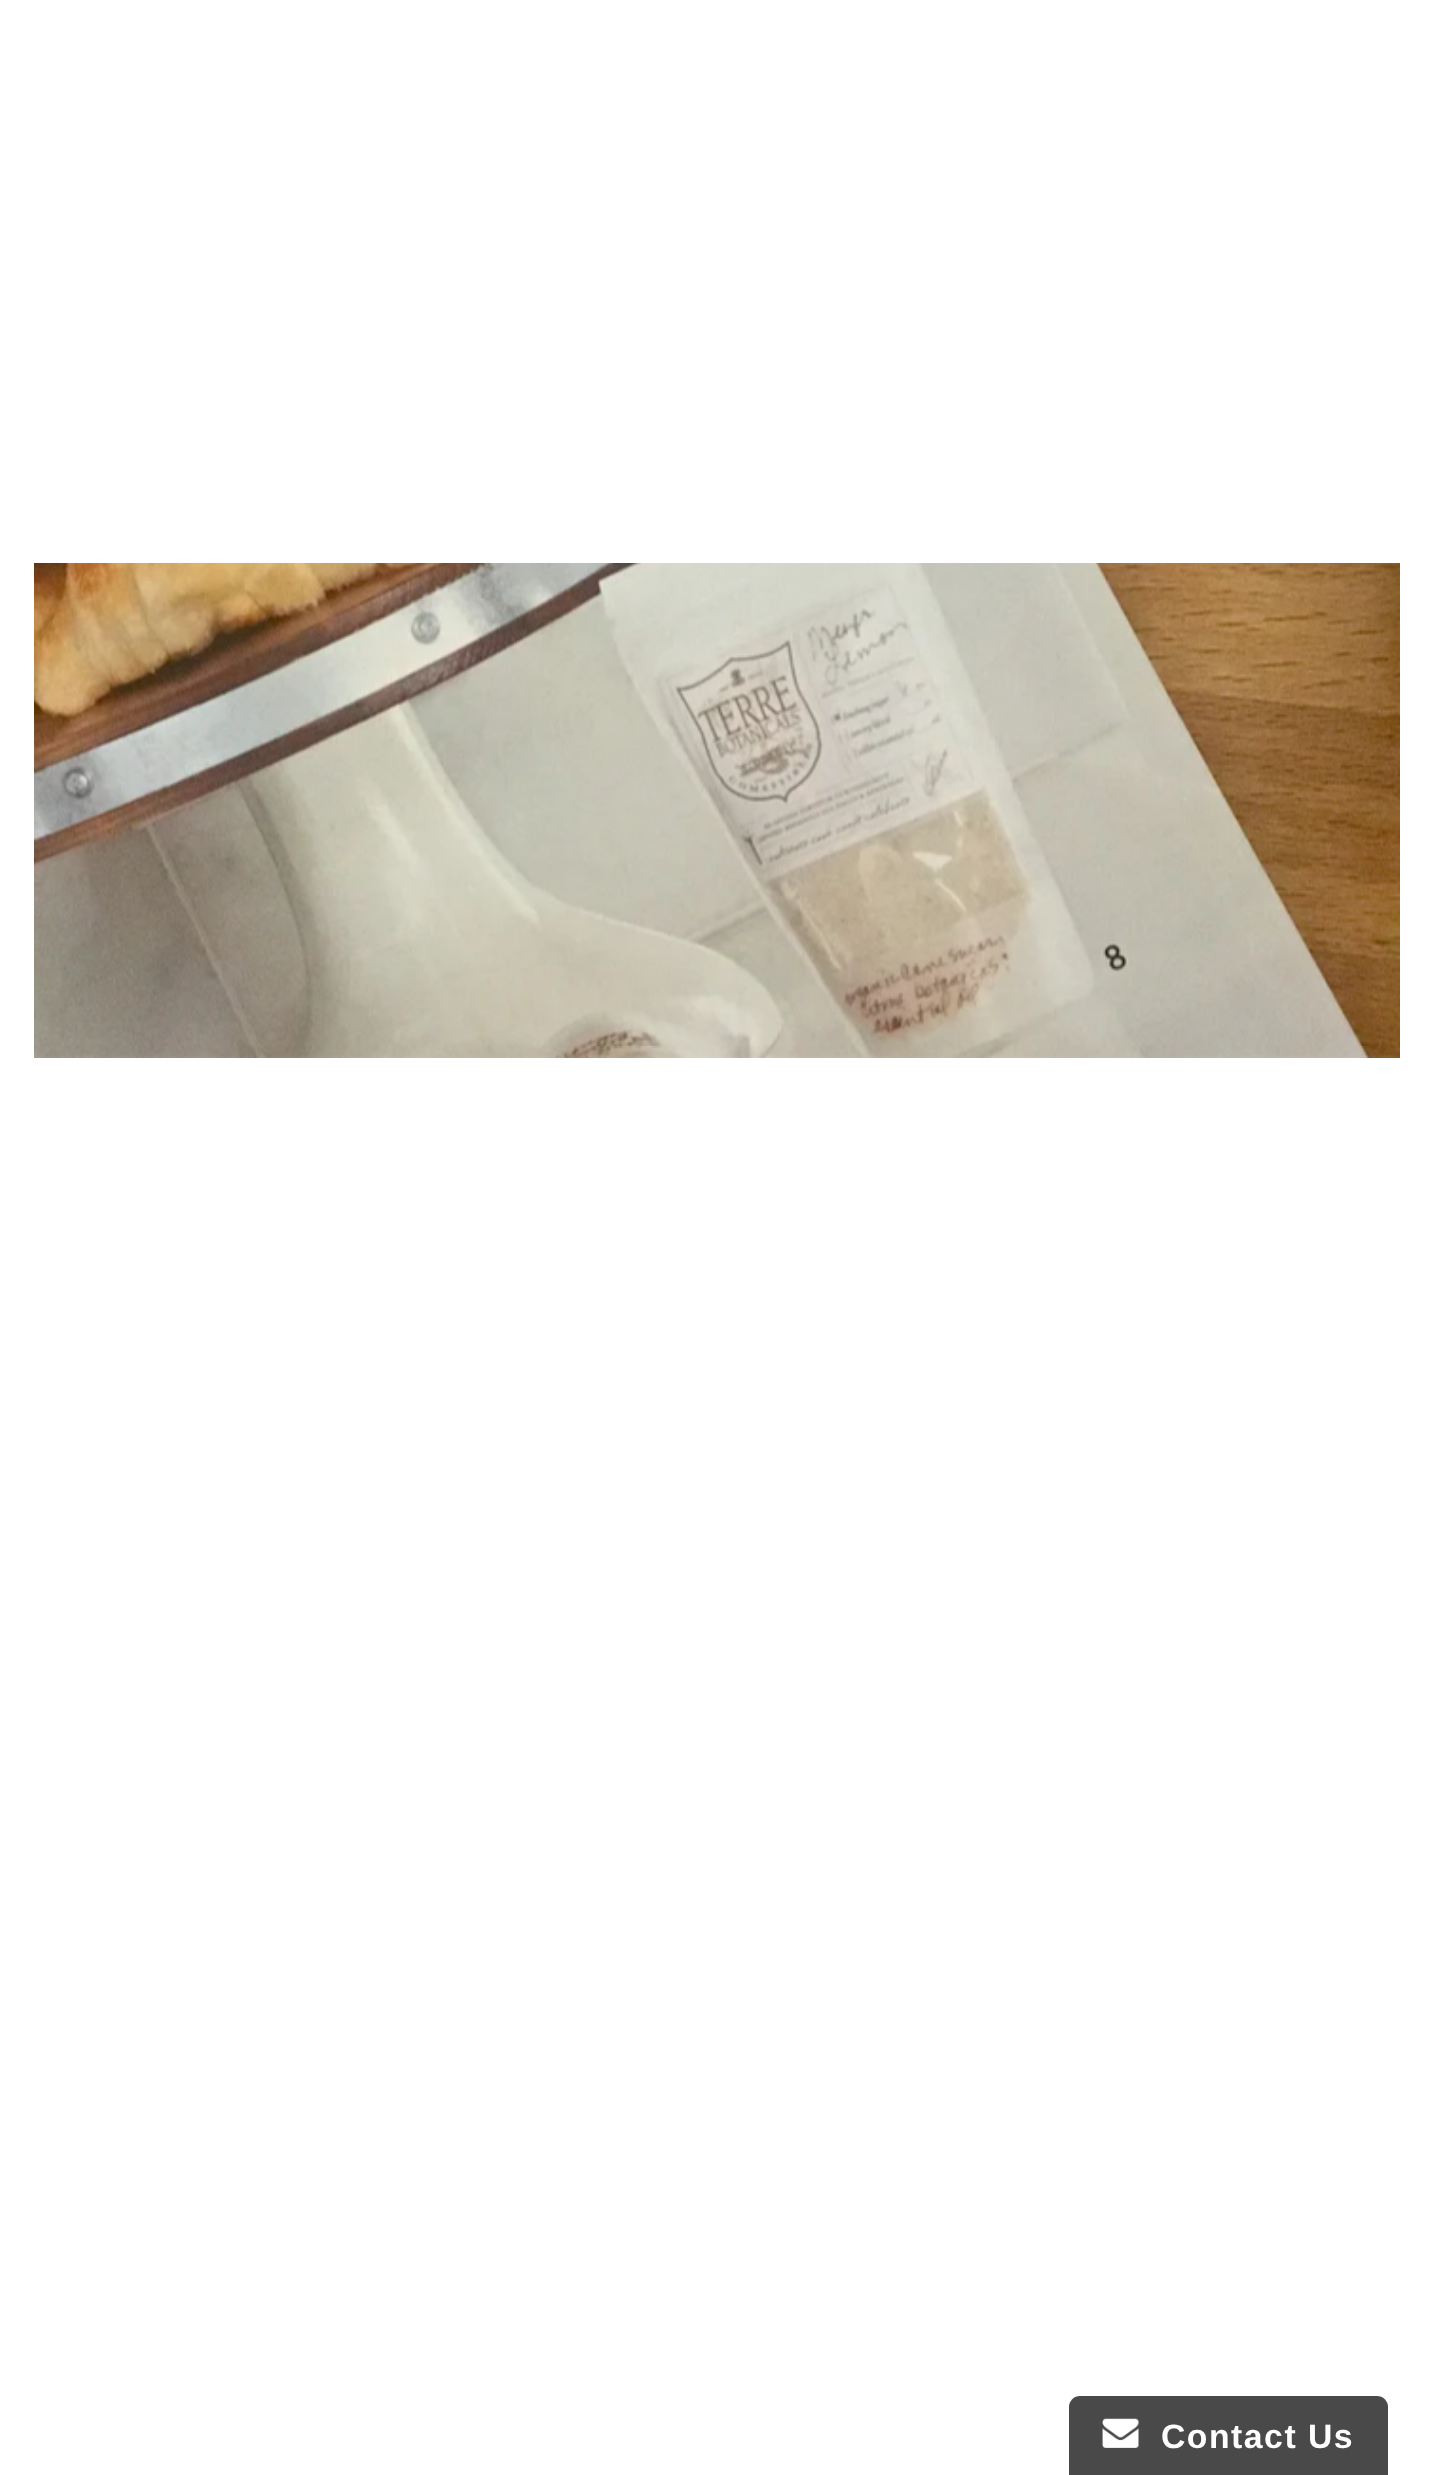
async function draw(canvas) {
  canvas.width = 1433
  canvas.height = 2475
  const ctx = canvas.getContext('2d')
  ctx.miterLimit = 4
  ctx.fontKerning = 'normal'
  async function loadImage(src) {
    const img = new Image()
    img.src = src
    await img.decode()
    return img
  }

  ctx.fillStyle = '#fff'
  ctx.fillRect(0, 0, 1433, 2475)
  ctx.drawImage(await loadImage('image0.png'), 34, 563, 1366, 495)
  ctx.fillStyle = '#494949'
  ctx.beginPath()
  ctx.roundRect(1069, 2396, 319, 79, [11, 11, 0, 0])
  ctx.fill()
  ctx.drawImage(await loadImage('image1.png'), 1102, 2418, 37, 30)
  ctx.letterSpacing = '1.5px'
  ctx.font = 'bold 33.75px Liberation Sans'
  ctx.fillStyle = '#fff'
  ctx.fillText('Contact Us', 1161, 2448)
}

draw(document.querySelector('canvas'))
